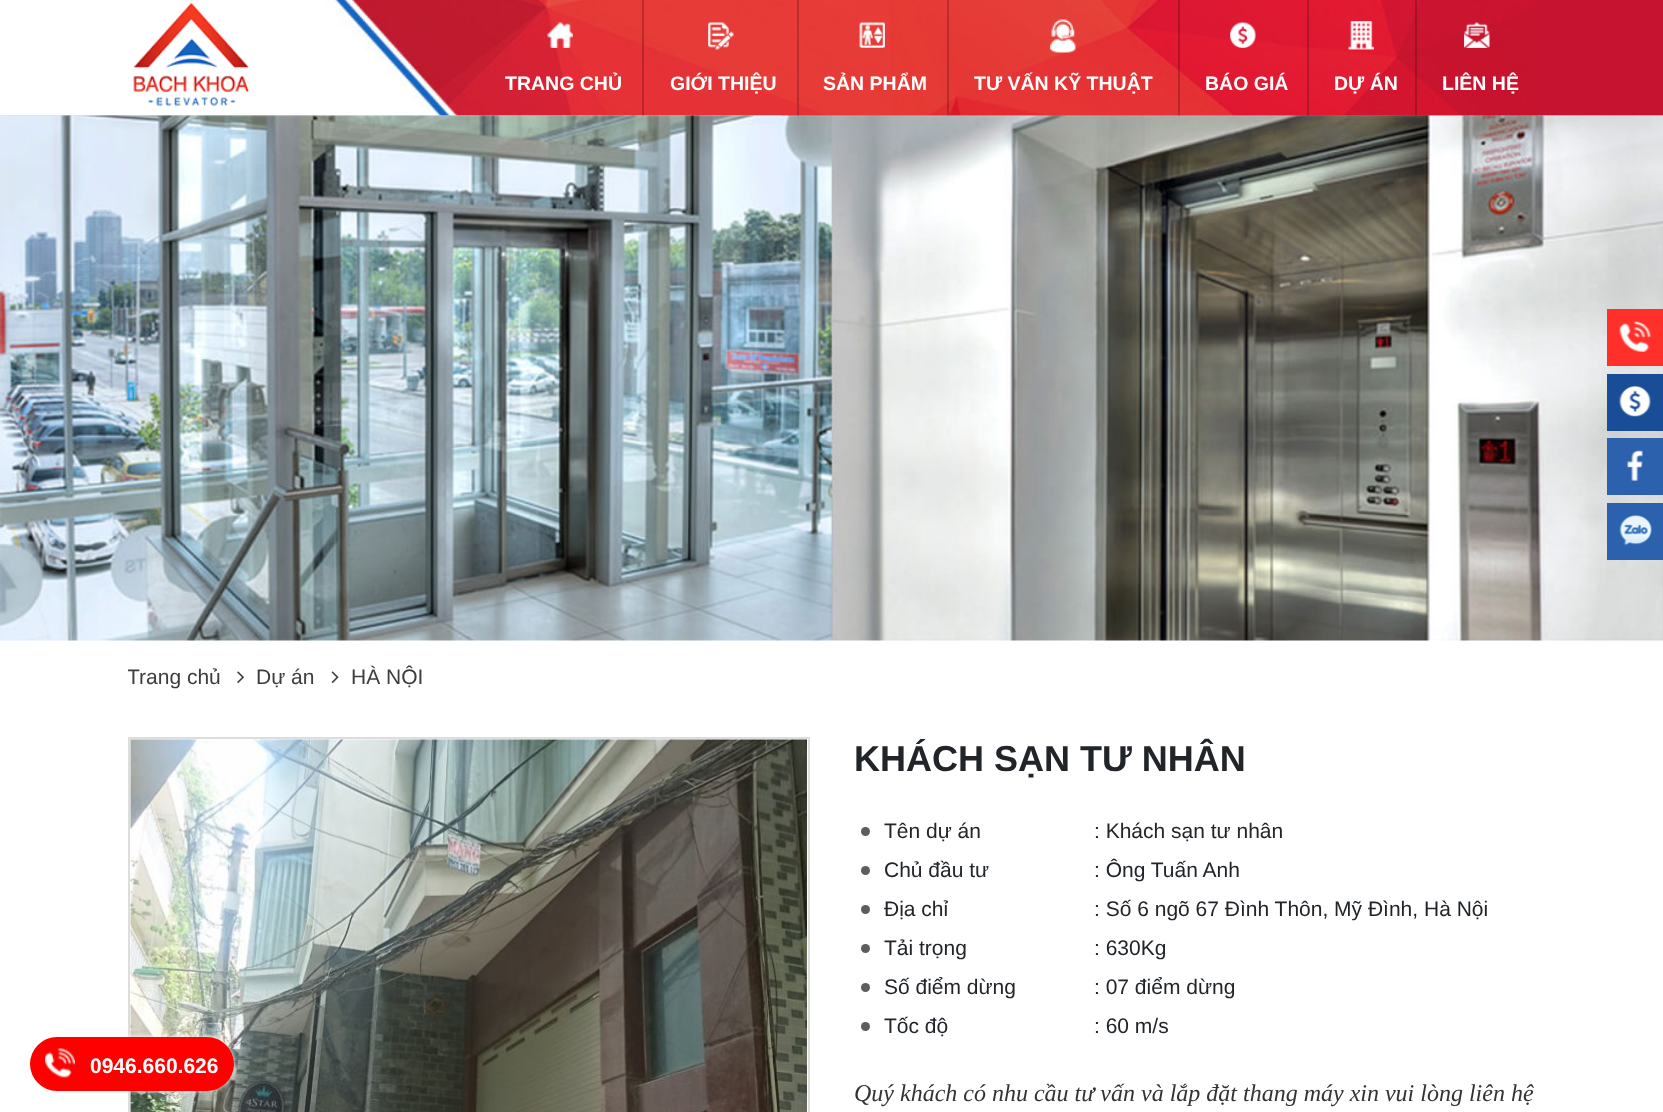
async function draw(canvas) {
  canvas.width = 1663
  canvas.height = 1112
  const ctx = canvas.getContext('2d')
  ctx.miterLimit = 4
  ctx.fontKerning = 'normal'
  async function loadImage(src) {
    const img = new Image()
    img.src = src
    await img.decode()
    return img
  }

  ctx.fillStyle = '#fff'
  ctx.fillRect(0, 0, 1663, 1112)
  ctx.fillStyle = '#989898'
  ctx.filter = 'blur(2px)'
  ctx.beginPath()
  ctx.rect(0, 0, 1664, 116)
  ctx.fill()
  ctx.filter = 'none'
  ctx.drawImage(await loadImage('image0.png'), 0, 0, 1663, 116)
  ctx.drawImage(await loadImage('image1.png'), 133, 2, 117, 104)
  ctx.drawImage(await loadImage('image2.png'), 315, 0, 1223, 116)
  ctx.fillStyle = '#00000033'
  ctx.fillRect(642, 0, 2, 116)
  ctx.drawImage(await loadImage('image3.png'), 547, 22, 26, 26)
  ctx.font = 'bold 19.5px Liberation Sans'
  ctx.fillStyle = '#fff'
  ctx.fillText('TRANG CHỦ', 505, 90)
  ctx.fillStyle = '#00000033'
  ctx.fillRect(797, 0, 2, 116)
  ctx.drawImage(await loadImage('image4.png'), 708, 22, 26, 28)
  ctx.fillStyle = '#fff'
  ctx.fillText('GIỚI THIỆU', 670, 90)
  ctx.fillStyle = '#00000033'
  ctx.fillRect(947, 0, 2, 116)
  ctx.drawImage(await loadImage('image5.png'), 859, 22, 26, 26)
  ctx.fillStyle = '#fff'
  ctx.fillText('SẢN PHẨM', 823, 90)
  ctx.fillStyle = '#00000033'
  ctx.fillRect(1178, 0, 2, 116)
  ctx.drawImage(await loadImage('image6.png'), 1050, 19, 26, 34)
  ctx.fillStyle = '#fff'
  ctx.fillText('TƯ VẤN KỸ THUẬT', 974, 90)
  ctx.fillStyle = '#00000033'
  ctx.fillRect(1307, 0, 2, 116)
  ctx.drawImage(await loadImage('image7.png'), 1230, 22, 26, 26)
  ctx.fillStyle = '#fff'
  ctx.fillText('BÁO GIÁ', 1205, 90)
  ctx.fillStyle = '#00000033'
  ctx.fillRect(1415, 0, 2, 116)
  ctx.drawImage(await loadImage('image8.png'), 1348, 21, 26, 29)
  ctx.fillStyle = '#fff'
  ctx.fillText('DỰ ÁN', 1334, 90)
  ctx.drawImage(await loadImage('image9.png'), 1464, 22, 26, 26)
  ctx.fillText('LIÊN HỆ', 1442, 90)
  ctx.strokeStyle = '#ddd'
  ctx.lineWidth = 2
  ctx.strokeRect(129, 738, 680, 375)
  ctx.drawImage(await loadImage('image18.png'), 130, 739, 677, 373)
  ctx.filter = 'blur(2px)'
  ctx.beginPath()
  ctx.roundRect(30, 1037, 204, 54, 27)
  ctx.fill()
  ctx.filter = 'none'
  ctx.fillStyle = '#f00'
  ctx.beginPath()
  ctx.roundRect(30, 1037, 204, 54, 27)
  ctx.fill()
  ctx.drawImage(await loadImage('image10.png'), 45, 1048, 30, 30)
  ctx.font = 'bold 21px Liberation Sans'
  ctx.fillStyle = '#fff'
  ctx.fillText('0946.660.626', 90, 1073)
  ctx.drawImage(await loadImage('image11.png'), 0, 115, 1663, 526)
  ctx.fillStyle = '#ff302a'
  ctx.fillRect(1607, 309, 56, 57)
  ctx.drawImage(await loadImage('image12.png'), 1619, 321, 32, 31)
  ctx.fillStyle = '#194d97'
  ctx.fillRect(1607, 374, 56, 57)
  ctx.drawImage(await loadImage('image13.png'), 1619, 386, 32, 31)
  ctx.fillStyle = '#2b61ad'
  ctx.fillRect(1607, 438, 56, 57)
  ctx.drawImage(await loadImage('image14.png'), 1627, 450, 16, 31)
  ctx.fillRect(1607, 503, 56, 57)
  ctx.drawImage(await loadImage('image15.png'), 1619, 515, 33, 31)
  ctx.save()
  ctx.beginPath()
  ctx.rect(128, 659, 1410, 36)
  ctx.clip()
  ctx.font = '21px Liberation Sans'
  ctx.fillStyle = '#3d3d3d'
  ctx.fillText('Trang chủ', 127, 684)
  ctx.restore()
  ctx.drawImage(await loadImage('image16.png'), 237, 671, 7, 12)
  ctx.font = '21px Liberation Sans'
  ctx.fillStyle = '#3d3d3d'
  ctx.fillText('Dự án', 256, 684)
  ctx.drawImage(await loadImage('image17.png'), 331, 671, 8, 12)
  ctx.fillText('HÀ NỘI', 351, 684)
  ctx.font = 'bold 36px Liberation Sans'
  ctx.fillStyle = '#212529'
  ctx.fillText('KHÁCH SẠN TƯ NHÂN', 854, 771)
  ctx.fillStyle = '#5d5d5d'
  ctx.beginPath()
  ctx.arc(865.5, 831.5, 4.5, 0, 2 * Math.PI)
  ctx.fill()
  ctx.font = '21px Liberation Sans'
  ctx.fillStyle = '#212529'
  ctx.fillText('Tên dự án', 884, 838)
  ctx.fillText(': Khách sạn tư nhân', 1094, 838)
  ctx.fillStyle = '#5d5d5d'
  ctx.beginPath()
  ctx.arc(865.5, 870.5, 4.5, 0, 2 * Math.PI)
  ctx.fill()
  ctx.fillStyle = '#212529'
  ctx.fillText('Chủ đầu tư', 884, 877)
  ctx.fillText(': Ông Tuấn Anh', 1094, 877)
  ctx.fillStyle = '#5d5d5d'
  ctx.beginPath()
  ctx.arc(865.5, 909.5, 4.5, 0, 2 * Math.PI)
  ctx.fill()
  ctx.fillStyle = '#212529'
  ctx.fillText('Địa chỉ', 884, 916)
  ctx.fillText(': Số 6 ngõ 67 Đình Thôn, Mỹ Đình, Hà Nội', 1094, 916)
  ctx.fillStyle = '#5d5d5d'
  ctx.beginPath()
  ctx.arc(865.5, 948.5, 4.5, 0, 2 * Math.PI)
  ctx.fill()
  ctx.fillStyle = '#212529'
  ctx.fillText('Tải trọng', 884, 955)
  ctx.fillText(': 630Kg', 1094, 955)
  ctx.fillStyle = '#5d5d5d'
  ctx.beginPath()
  ctx.arc(865.5, 987.5, 4.5, 0, 2 * Math.PI)
  ctx.fill()
  ctx.fillStyle = '#212529'
  ctx.fillText('Số điểm dừng', 884, 994)
  ctx.fillText(': 07 điểm dừng', 1094, 994)
  ctx.fillStyle = '#5d5d5d'
  ctx.beginPath()
  ctx.arc(865.5, 1026.5, 4.5, 0, 2 * Math.PI)
  ctx.fill()
  ctx.fillStyle = '#212529'
  ctx.fillText('Tốc độ', 884, 1033)
  ctx.fillText(': 60 m/s', 1094, 1033)
  ctx.font = 'italic 24px Liberation Serif'
  ctx.fillStyle = '#333'
  ctx.fillText('Quý khách có nhu cầu tư vấn và lắp đặt thang máy xin vui lòng liên hệ', 854, 1101)
}

draw(document.querySelector('canvas'))
